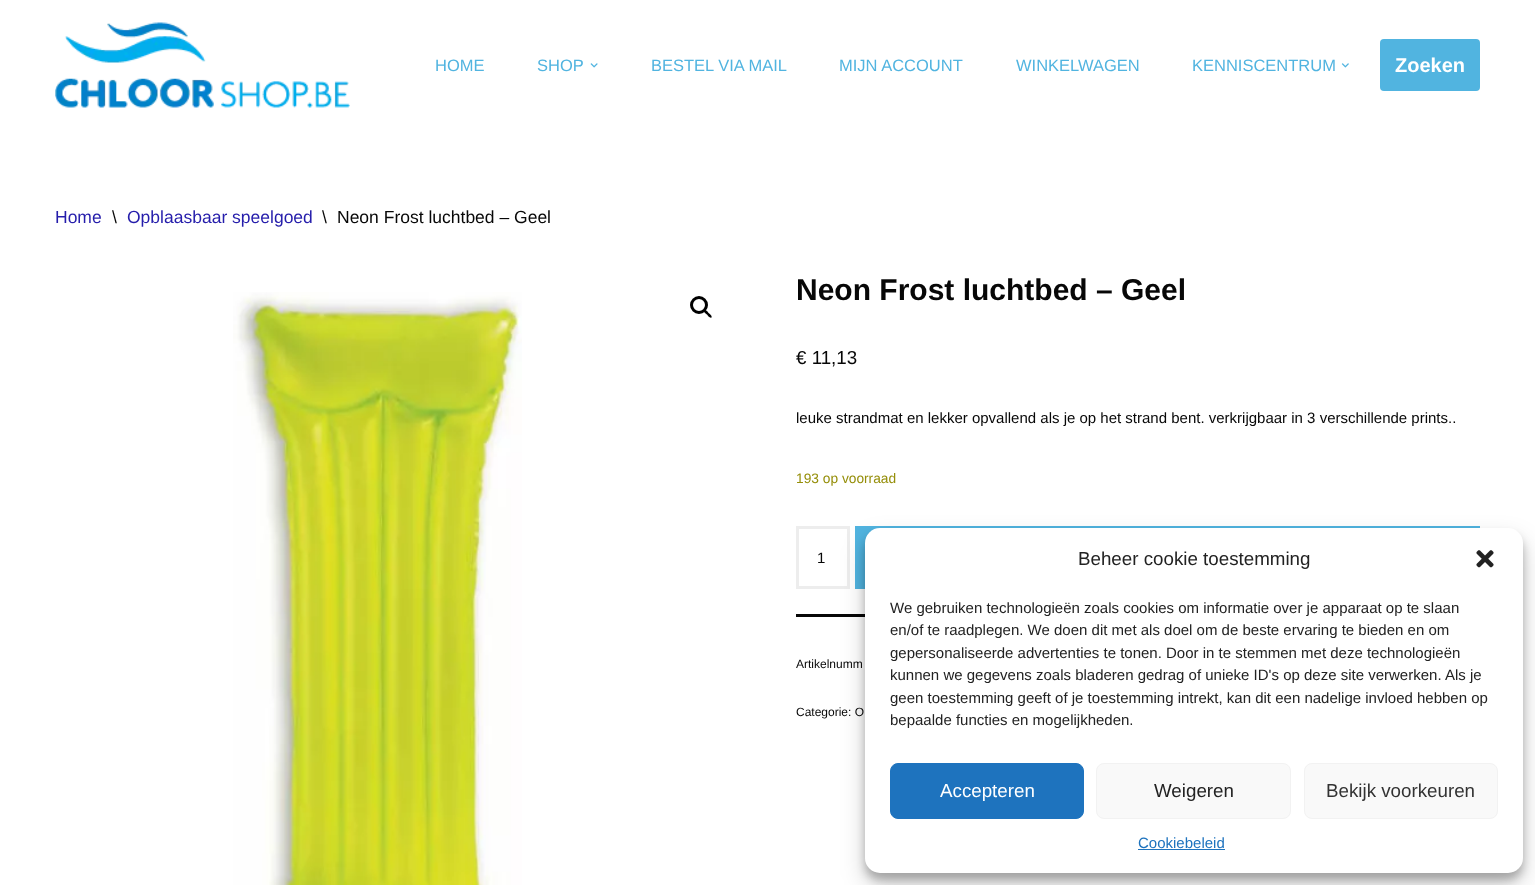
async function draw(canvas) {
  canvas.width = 1535
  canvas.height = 885
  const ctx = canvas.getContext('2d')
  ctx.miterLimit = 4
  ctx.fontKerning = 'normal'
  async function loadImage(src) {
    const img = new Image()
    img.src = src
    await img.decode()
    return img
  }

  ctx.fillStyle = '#fff'
  ctx.fillRect(0, 0, 1535, 885)
  ctx.drawImage(await loadImage('image0.png'), 55, 22, 295, 86)
  ctx.font = '16.5px Liberation Sans'
  ctx.fillStyle = '#51b4e0'
  ctx.fillText('HOME', 435, 71)
  ctx.fillText('SHOP', 537, 71)
  ctx.drawImage(await loadImage('image1.png'), 590, 63, 8, 5)
  ctx.fillText('BESTEL VIA MAIL', 651, 71)
  ctx.fillText('MIJN ACCOUNT', 839, 71)
  ctx.fillText('WINKELWAGEN', 1016, 71)
  ctx.fillText('KENNISCENTRUM', 1192, 71)
  ctx.drawImage(await loadImage('image2.png'), 1341, 63, 8, 5)
  ctx.beginPath()
  ctx.roundRect(1380, 39, 100, 52, 4)
  ctx.fill()
  ctx.font = 'bold 20px Liberation Sans'
  ctx.fillStyle = '#fff'
  ctx.fillText('Zoeken', 1395, 72)
  ctx.font = '17.5px Liberation Sans'
  ctx.fillStyle = '#251dab'
  ctx.fillText('Home', 55, 223)
  ctx.fillStyle = '#070707'
  ctx.fillText('\\', 112, 223)
  ctx.fillStyle = '#251dab'
  ctx.fillText('Opblaasbaar speelgoed', 127, 223)
  ctx.fillStyle = '#070707'
  ctx.fillText('\\', 322, 223)
  ctx.fillText('Neon Frost luchtbed – Geel', 337, 223)
  ctx.drawImage(await loadImage('image3.png'), 233, 292, 289, 593)
  ctx.beginPath()
  ctx.arc(699, 305, 7.5, 0, 2 * Math.PI)
  ctx.strokeStyle = '#000'
  ctx.lineWidth = 3
  ctx.stroke()
  ctx.fillStyle = '#000'
  ctx.beginPath()
  ctx.moveTo(704, 310)
  ctx.bezierCurveTo(705.5, 309, 708, 312, 708.5, 313)
  ctx.bezierCurveTo(709.5, 313.5, 712.5, 316, 711.5, 317.5)
  ctx.bezierCurveTo(710, 318.5, 707.5, 315.5, 707, 314.5)
  ctx.bezierCurveTo(706, 314, 703, 311.5, 704, 310)
  ctx.closePath()
  ctx.fill()
  ctx.font = 'bold 30px Liberation Sans'
  ctx.fillStyle = '#070707'
  ctx.fillText('Neon Frost luchtbed – Geel', 796, 300)
  ctx.font = '18.75px Liberation Sans'
  ctx.fillText('€ 11,13', 796, 364)
  ctx.font = '15px Liberation Sans'
  ctx.fillText('leuke strandmat en lekker opvallend als je op het strand bent. verkrijgbaar in 3 verschillende prints..', 796, 423)
  ctx.font = '13.75px Liberation Sans'
  ctx.fillStyle = '#958e09'
  ctx.fillText('193 op voorraad', 796, 483)
  ctx.fillStyle = '#070707'
  ctx.fillRect(796, 614, 69, 3)
  ctx.strokeStyle = '#ededed'
  ctx.strokeRect(797.5, 527.5, 51, 60)
  ctx.font = '15px Liberation Sans'
  ctx.fillText('1', 817, 563)
  ctx.fillStyle = '#51b4e0'
  ctx.fillRect(855, 526, 625, 63)
  ctx.font = '12px Liberation Sans'
  ctx.fillStyle = '#070707'
  ctx.fillText('Artikelnumm', 796, 668)
  ctx.fillText('Categorie: O', 796, 716)
  ctx.fillStyle = '#0000003b'
  ctx.filter = 'blur(4px)'
  ctx.beginPath()
  ctx.roundRect(865, 535, 658, 345, 15)
  ctx.fill()
  ctx.filter = 'none'
  ctx.fillStyle = '#00000030'
  ctx.filter = 'blur(12.5px)'
  ctx.beginPath()
  ctx.roundRect(865, 540, 658, 345, 15)
  ctx.fill()
  ctx.filter = 'none'
  ctx.fillStyle = '#fff'
  ctx.beginPath()
  ctx.roundRect(865, 528, 658, 345, 15)
  ctx.fill()
  ctx.font = '18.75px Liberation Sans'
  ctx.fillStyle = '#222'
  ctx.fillText('Beheer cookie toestemming', 1078, 565)
  ctx.drawImage(await loadImage('image4.png'), 1476, 550, 18, 18)
  ctx.font = '15px Liberation Sans'
  ctx.fillText('We gebruiken technologieën zoals cookies om informatie over je apparaat op te slaan', 890, 613)
  ctx.fillText('en/of te raadplegen. We doen dit met als doel om de beste ervaring te bieden en om', 890, 635)
  ctx.fillText('gepersonaliseerde advertenties te tonen. Door in te stemmen met deze technologieën', 890, 658)
  ctx.fillText('kunnen we gegevens zoals bladeren gedrag of unieke ID\'s op deze site verwerken. Als je', 890, 680)
  ctx.fillText('geen toestemming geeft of je toestemming intrekt, kan dit een nadelige invloed hebben op', 890, 703)
  ctx.fillText('bepaalde functies en mogelijkheden.', 890, 725)
  ctx.fillStyle = '#1e73be'
  ctx.beginPath()
  ctx.roundRect(890.5, 763.5, 193, 55, 7.5)
  ctx.fill()
  ctx.strokeStyle = '#1e73be'
  ctx.lineWidth = 1
  ctx.stroke()
  ctx.font = '18.75px Liberation Sans'
  ctx.fillStyle = '#fff'
  ctx.fillText('Accepteren', 940, 797)
  ctx.fillStyle = '#f9f9f9'
  ctx.beginPath()
  ctx.roundRect(1096.5, 763.5, 194, 55, 7.5)
  ctx.fill()
  ctx.strokeStyle = '#f2f2f2'
  ctx.stroke()
  ctx.fillStyle = '#222'
  ctx.fillText('Weigeren', 1154, 797)
  ctx.fillStyle = '#f9f9f9'
  ctx.beginPath()
  ctx.roundRect(1304.5, 763.5, 193, 55, 7.5)
  ctx.fill()
  ctx.stroke()
  ctx.fillStyle = '#333'
  ctx.fillText('Bekijk voorkeuren', 1326, 797)
  ctx.font = '15px Liberation Sans'
  ctx.fillStyle = '#1e73be'
  ctx.fillText('Cookiebeleid', 1138, 848)
  ctx.fillRect(1138, 849, 87, 1)
}

draw(document.querySelector('canvas'))
